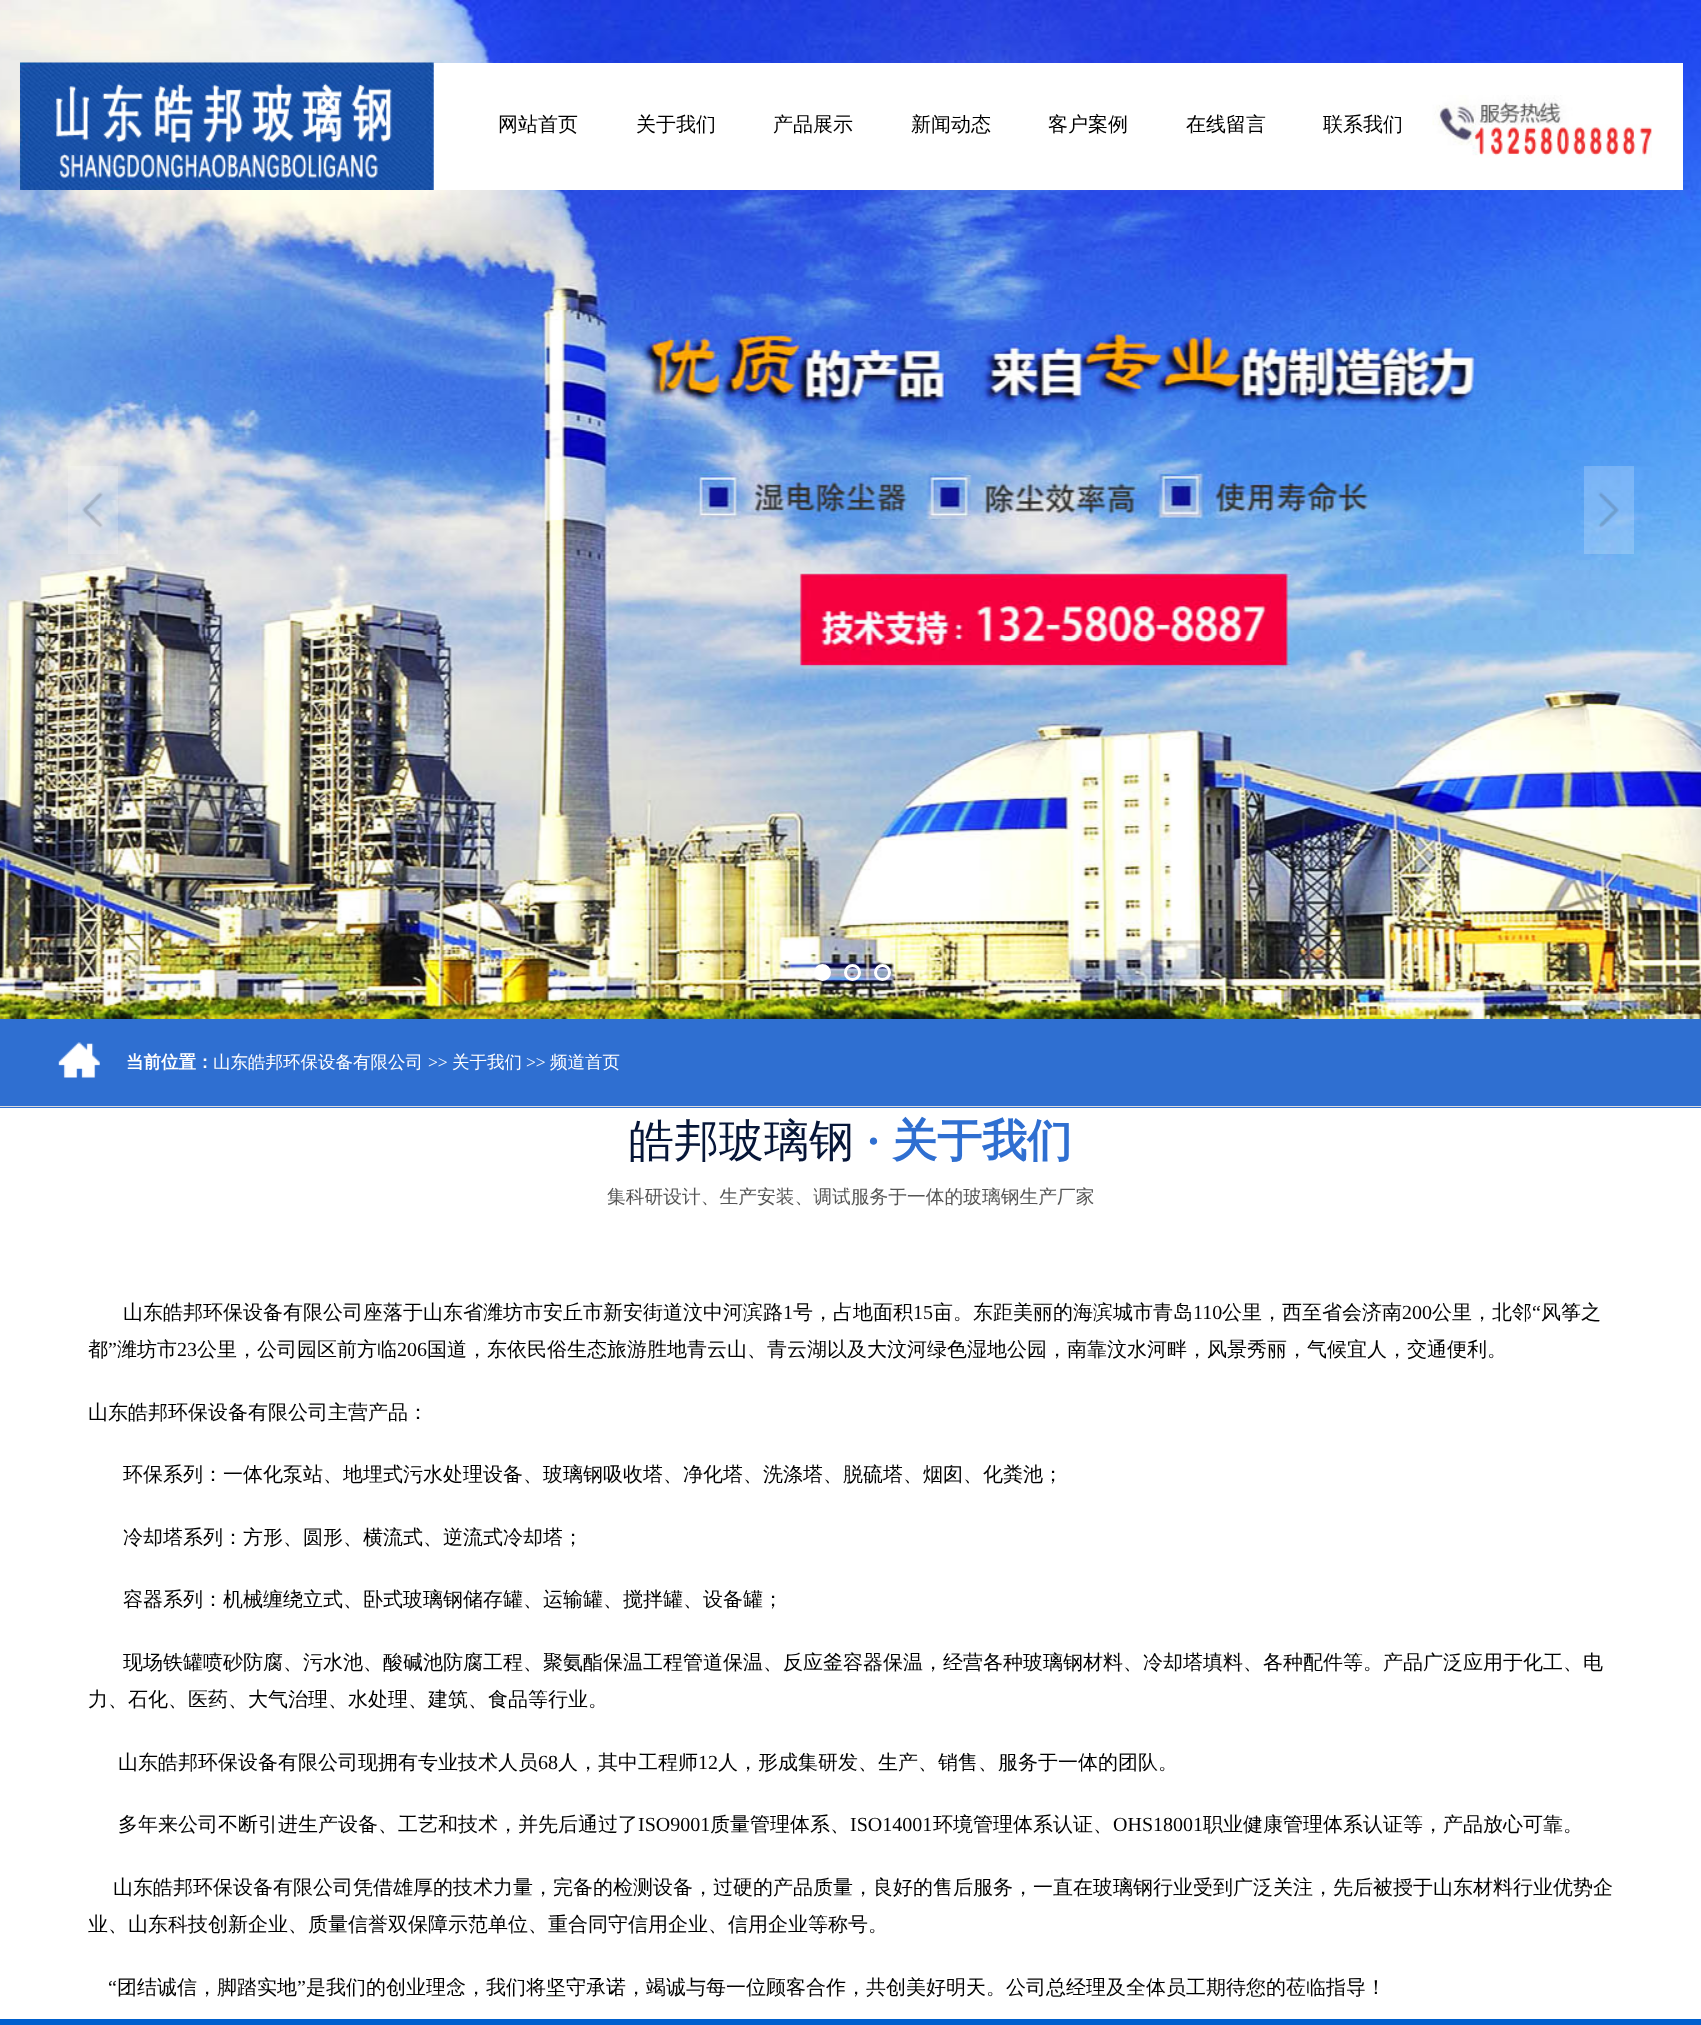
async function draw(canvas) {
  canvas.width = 1701
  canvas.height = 2025
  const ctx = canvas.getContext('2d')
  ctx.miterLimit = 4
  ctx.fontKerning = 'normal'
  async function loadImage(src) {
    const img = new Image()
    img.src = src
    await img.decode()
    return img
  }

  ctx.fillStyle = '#fff'
  ctx.fillRect(0, 0, 1701, 2025)
  ctx.drawImage(await loadImage('image0.png'), 0, 0, 1701, 1019)
  ctx.fillStyle = '#ffffff33'
  ctx.fillRect(68, 466, 50, 88)
  ctx.drawImage(await loadImage('image1.png'), 82, 492, 21, 36)
  ctx.fillRect(1584, 466, 50, 88)
  ctx.drawImage(await loadImage('image2.png'), 1598, 492, 21, 36)
  ctx.fillStyle = '#fff'
  ctx.beginPath()
  ctx.arc(822.5, 972.5, 7, 0, 2 * Math.PI)
  ctx.fill()
  ctx.strokeStyle = '#fff'
  ctx.lineWidth = 3
  ctx.stroke()
  ctx.beginPath()
  ctx.arc(852.5, 972.5, 7, 0, 2 * Math.PI)
  ctx.stroke()
  ctx.beginPath()
  ctx.arc(882.5, 972.5, 7, 0, 2 * Math.PI)
  ctx.stroke()
  ctx.fillRect(433, 63, 1250, 127)
  ctx.drawImage(await loadImage('image3.png'), 20, 62, 414, 128)
  ctx.font = '500 20px WenQuanYi Zen Hei'
  ctx.fillStyle = '#000'
  ctx.fillText('网站首页', 498, 131)
  ctx.fillText('关于我们', 636, 131)
  ctx.fillText('产品展示', 773, 131)
  ctx.fillText('新闻动态', 911, 131)
  ctx.fillText('客户案例', 1048, 131)
  ctx.fillText('在线留言', 1186, 131)
  ctx.fillText('联系我们', 1323, 131)
  ctx.drawImage(await loadImage('image4.png'), 1432, 95, 220, 63)
  ctx.fillStyle = '#2f6fd1'
  ctx.fillRect(0, 1019, 1701, 89)
  ctx.fillStyle = '#ddd'
  ctx.fillRect(0, 1106, 1701, 1)
  ctx.drawImage(await loadImage('image5.png'), 58, 1042, 42, 36)
  ctx.font = 'bold 17.5px WenQuanYi Zen Hei'
  ctx.fillStyle = '#fff'
  ctx.fillText('当前位置：', 126, 1068)
  ctx.font = '500 17.5px WenQuanYi Zen Hei'
  ctx.fillText('山东皓邦环保设备有限公司', 213, 1068)
  ctx.font = '17.5px Liberation Serif'
  ctx.fillText('>>', 428, 1068)
  ctx.font = '500 17.5px WenQuanYi Zen Hei'
  ctx.fillText('关于我们', 452, 1068)
  ctx.font = '17.5px Liberation Serif'
  ctx.fillText('>>', 526, 1068)
  ctx.font = '500 17.5px WenQuanYi Zen Hei'
  ctx.fillText('频道首页', 550, 1068)
  ctx.font = '500 45px WenQuanYi Zen Hei'
  ctx.fillStyle = '#061638'
  ctx.fillText('皓邦玻璃钢', 629, 1156)
  ctx.font = 'bold 45px Liberation Serif'
  ctx.fillStyle = '#2f6fd1'
  ctx.fillText('·', 866, 1156)
  ctx.font = 'bold 45px WenQuanYi Zen Hei'
  ctx.fillText('关于我们', 892, 1156)
  ctx.font = '500 18.75px WenQuanYi Zen Hei'
  ctx.fillStyle = '#555'
  ctx.fillText('集科研设计、生产安装、调试服务于一体的玻璃钢生产厂家', 607, 1203)
  ctx.font = '500 20px WenQuanYi Zen Hei'
  ctx.fillStyle = '#000'
  ctx.fillText('山东皓邦环保设备有限公司座落于山东省潍坊市安丘市新安街道汶中河滨路', 123, 1319)
  ctx.font = '20px Liberation Serif'
  ctx.fillText('1', 783, 1319)
  ctx.font = '500 20px WenQuanYi Zen Hei'
  ctx.fillText('号，占地面积', 793, 1319)
  ctx.font = '20px Liberation Serif'
  ctx.fillText('15', 913, 1319)
  ctx.font = '500 20px WenQuanYi Zen Hei'
  ctx.fillText('亩。东距美丽的海滨城市青岛', 933, 1319)
  ctx.font = '20px Liberation Serif'
  ctx.fillText('110', 1193, 1319)
  ctx.font = '500 20px WenQuanYi Zen Hei'
  ctx.fillText('公里，西至省会济南', 1222, 1319)
  ctx.font = '20px Liberation Serif'
  ctx.fillText('200', 1402, 1319)
  ctx.font = '500 20px WenQuanYi Zen Hei'
  ctx.fillText('公里，北邻', 1432, 1319)
  ctx.font = '20px Liberation Serif'
  ctx.fillText('“', 1532, 1319)
  ctx.font = '500 20px WenQuanYi Zen Hei'
  ctx.fillText('风筝之', 1541, 1319)
  ctx.fillText('都', 88, 1356)
  ctx.font = '20px Liberation Serif'
  ctx.fillText('”', 108, 1356)
  ctx.font = '500 20px WenQuanYi Zen Hei'
  ctx.fillText('潍坊市', 117, 1356)
  ctx.font = '20px Liberation Serif'
  ctx.fillText('23', 177, 1356)
  ctx.font = '500 20px WenQuanYi Zen Hei'
  ctx.fillText('公里，公司园区前方临', 197, 1356)
  ctx.font = '20px Liberation Serif'
  ctx.fillText('206', 397, 1356)
  ctx.font = '500 20px WenQuanYi Zen Hei'
  ctx.fillText('国道，东依民俗生态旅游胜地青云山、青云湖以及大汶河绿色湿地公园，南靠汶水河畔，风景秀丽，气候宜人，交通便利。', 427, 1356)
  ctx.fillText('山东皓邦环保设备有限公司主营产品：', 88, 1419)
  ctx.fillText('环保系列：一体化泵站、地埋式污水处理设备、玻璃钢吸收塔、净化塔、洗涤塔、脱硫塔、烟囱、化粪池；', 123, 1481)
  ctx.fillText('冷却塔系列：方形、圆形、横流式、逆流式冷却塔；', 123, 1544)
  ctx.fillText('容器系列：机械缠绕立式、卧式玻璃钢储存罐、运输罐、搅拌罐、设备罐；', 123, 1606)
  ctx.fillText('现场铁罐喷砂防腐、污水池、酸碱池防腐工程、聚氨酯保温工程管道保温、反应釜容器保温，经营各种玻璃钢材料、冷却塔填料、各种配件等。产品广泛应用于化工、电', 123, 1669)
  ctx.fillText('力、石化、医药、大气治理、水处理、建筑、食品等行业。', 88, 1706)
  ctx.fillText('山东皓邦环保设备有限公司现拥有专业技术人员', 118, 1769)
  ctx.font = '20px Liberation Serif'
  ctx.fillText('68', 538, 1769)
  ctx.font = '500 20px WenQuanYi Zen Hei'
  ctx.fillText('人，其中工程师', 558, 1769)
  ctx.font = '20px Liberation Serif'
  ctx.fillText('12', 698, 1769)
  ctx.font = '500 20px WenQuanYi Zen Hei'
  ctx.fillText('人，形成集研发、生产、销售、服务于一体的团队。', 718, 1769)
  ctx.fillText('多年来公司不断引进生产设备、工艺和技术，并先后通过了', 118, 1831)
  ctx.font = '20px Liberation Serif'
  ctx.fillText('ISO9001', 638, 1831)
  ctx.font = '500 20px WenQuanYi Zen Hei'
  ctx.fillText('质量管理体系、', 710, 1831)
  ctx.font = '20px Liberation Serif'
  ctx.fillText('ISO14001', 850, 1831)
  ctx.font = '500 20px WenQuanYi Zen Hei'
  ctx.fillText('环境管理体系认证、', 933, 1831)
  ctx.font = '20px Liberation Serif'
  ctx.fillText('OHS18001', 1113, 1831)
  ctx.font = '500 20px WenQuanYi Zen Hei'
  ctx.fillText('职业健康管理体系认证等，产品放心可靠。', 1203, 1831)
  ctx.fillText('山东皓邦环保设备有限公司凭借雄厚的技术力量，完备的检测设备，过硬的产品质量，良好的售后服务，一直在玻璃钢行业受到广泛关注，先后被授于山东材料行业优势企', 113, 1894)
  ctx.fillText('业、山东科技创新企业、质量信誉双保障示范单位、重合同守信用企业、信用企业等称号。', 88, 1931)
  ctx.font = '20px Liberation Serif'
  ctx.fillText('“', 108, 1994)
  ctx.font = '500 20px WenQuanYi Zen Hei'
  ctx.fillText('团结诚信，脚踏实地', 117, 1994)
  ctx.font = '20px Liberation Serif'
  ctx.fillText('”', 297, 1994)
  ctx.font = '500 20px WenQuanYi Zen Hei'
  ctx.fillText('是我们的创业理念，我们将坚守承诺，竭诚与每一位顾客合作，共创美好明天。公司总经理及全体员工期待您的莅临指导！', 306, 1994)
  ctx.fillStyle = '#0060ce'
  ctx.fillRect(0, 2019, 1701, 6)
}

draw(document.querySelector('canvas'))
